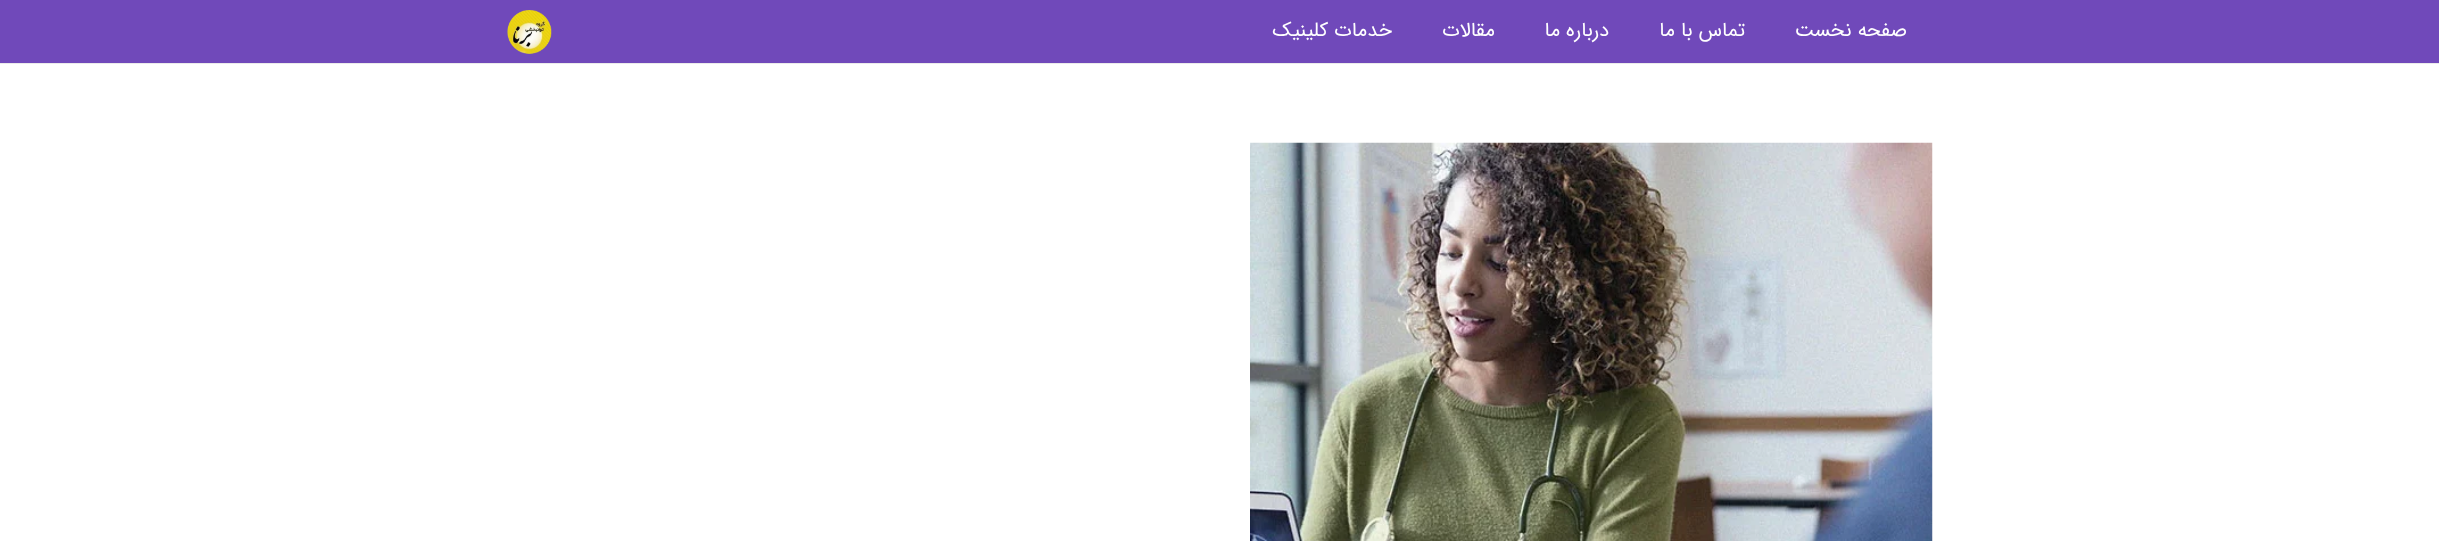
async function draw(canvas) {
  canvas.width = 2439
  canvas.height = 541
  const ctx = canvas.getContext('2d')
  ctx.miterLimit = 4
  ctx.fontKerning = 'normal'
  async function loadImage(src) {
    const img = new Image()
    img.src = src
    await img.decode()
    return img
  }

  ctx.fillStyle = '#fff'
  ctx.fillRect(0, 0, 2439, 541)
  ctx.fillStyle = '#ebebeb'
  ctx.fillRect(0, 63, 2439, 1)
  ctx.fillStyle = '#7049ba'
  ctx.fillRect(0, 0, 2439, 63)
  ctx.direction = 'rtl'
  ctx.font = '20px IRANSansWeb'
  ctx.fillStyle = '#fff'
  ctx.fillText('صفحه نخست', 1907, 36)
  ctx.fillText('تماس با ما', 1745, 36)
  ctx.fillText('درباره ما', 1609, 36)
  ctx.fillText('مقالات', 1495, 36)
  ctx.fillText('خدمات کلینیک', 1392, 36)
  ctx.drawImage(await loadImage('image0.png'), 507, 10, 45, 44)
  ctx.drawImage(await loadImage('image1.png'), 1250, 142, 683, 399)
}

draw(document.querySelector('canvas'))
